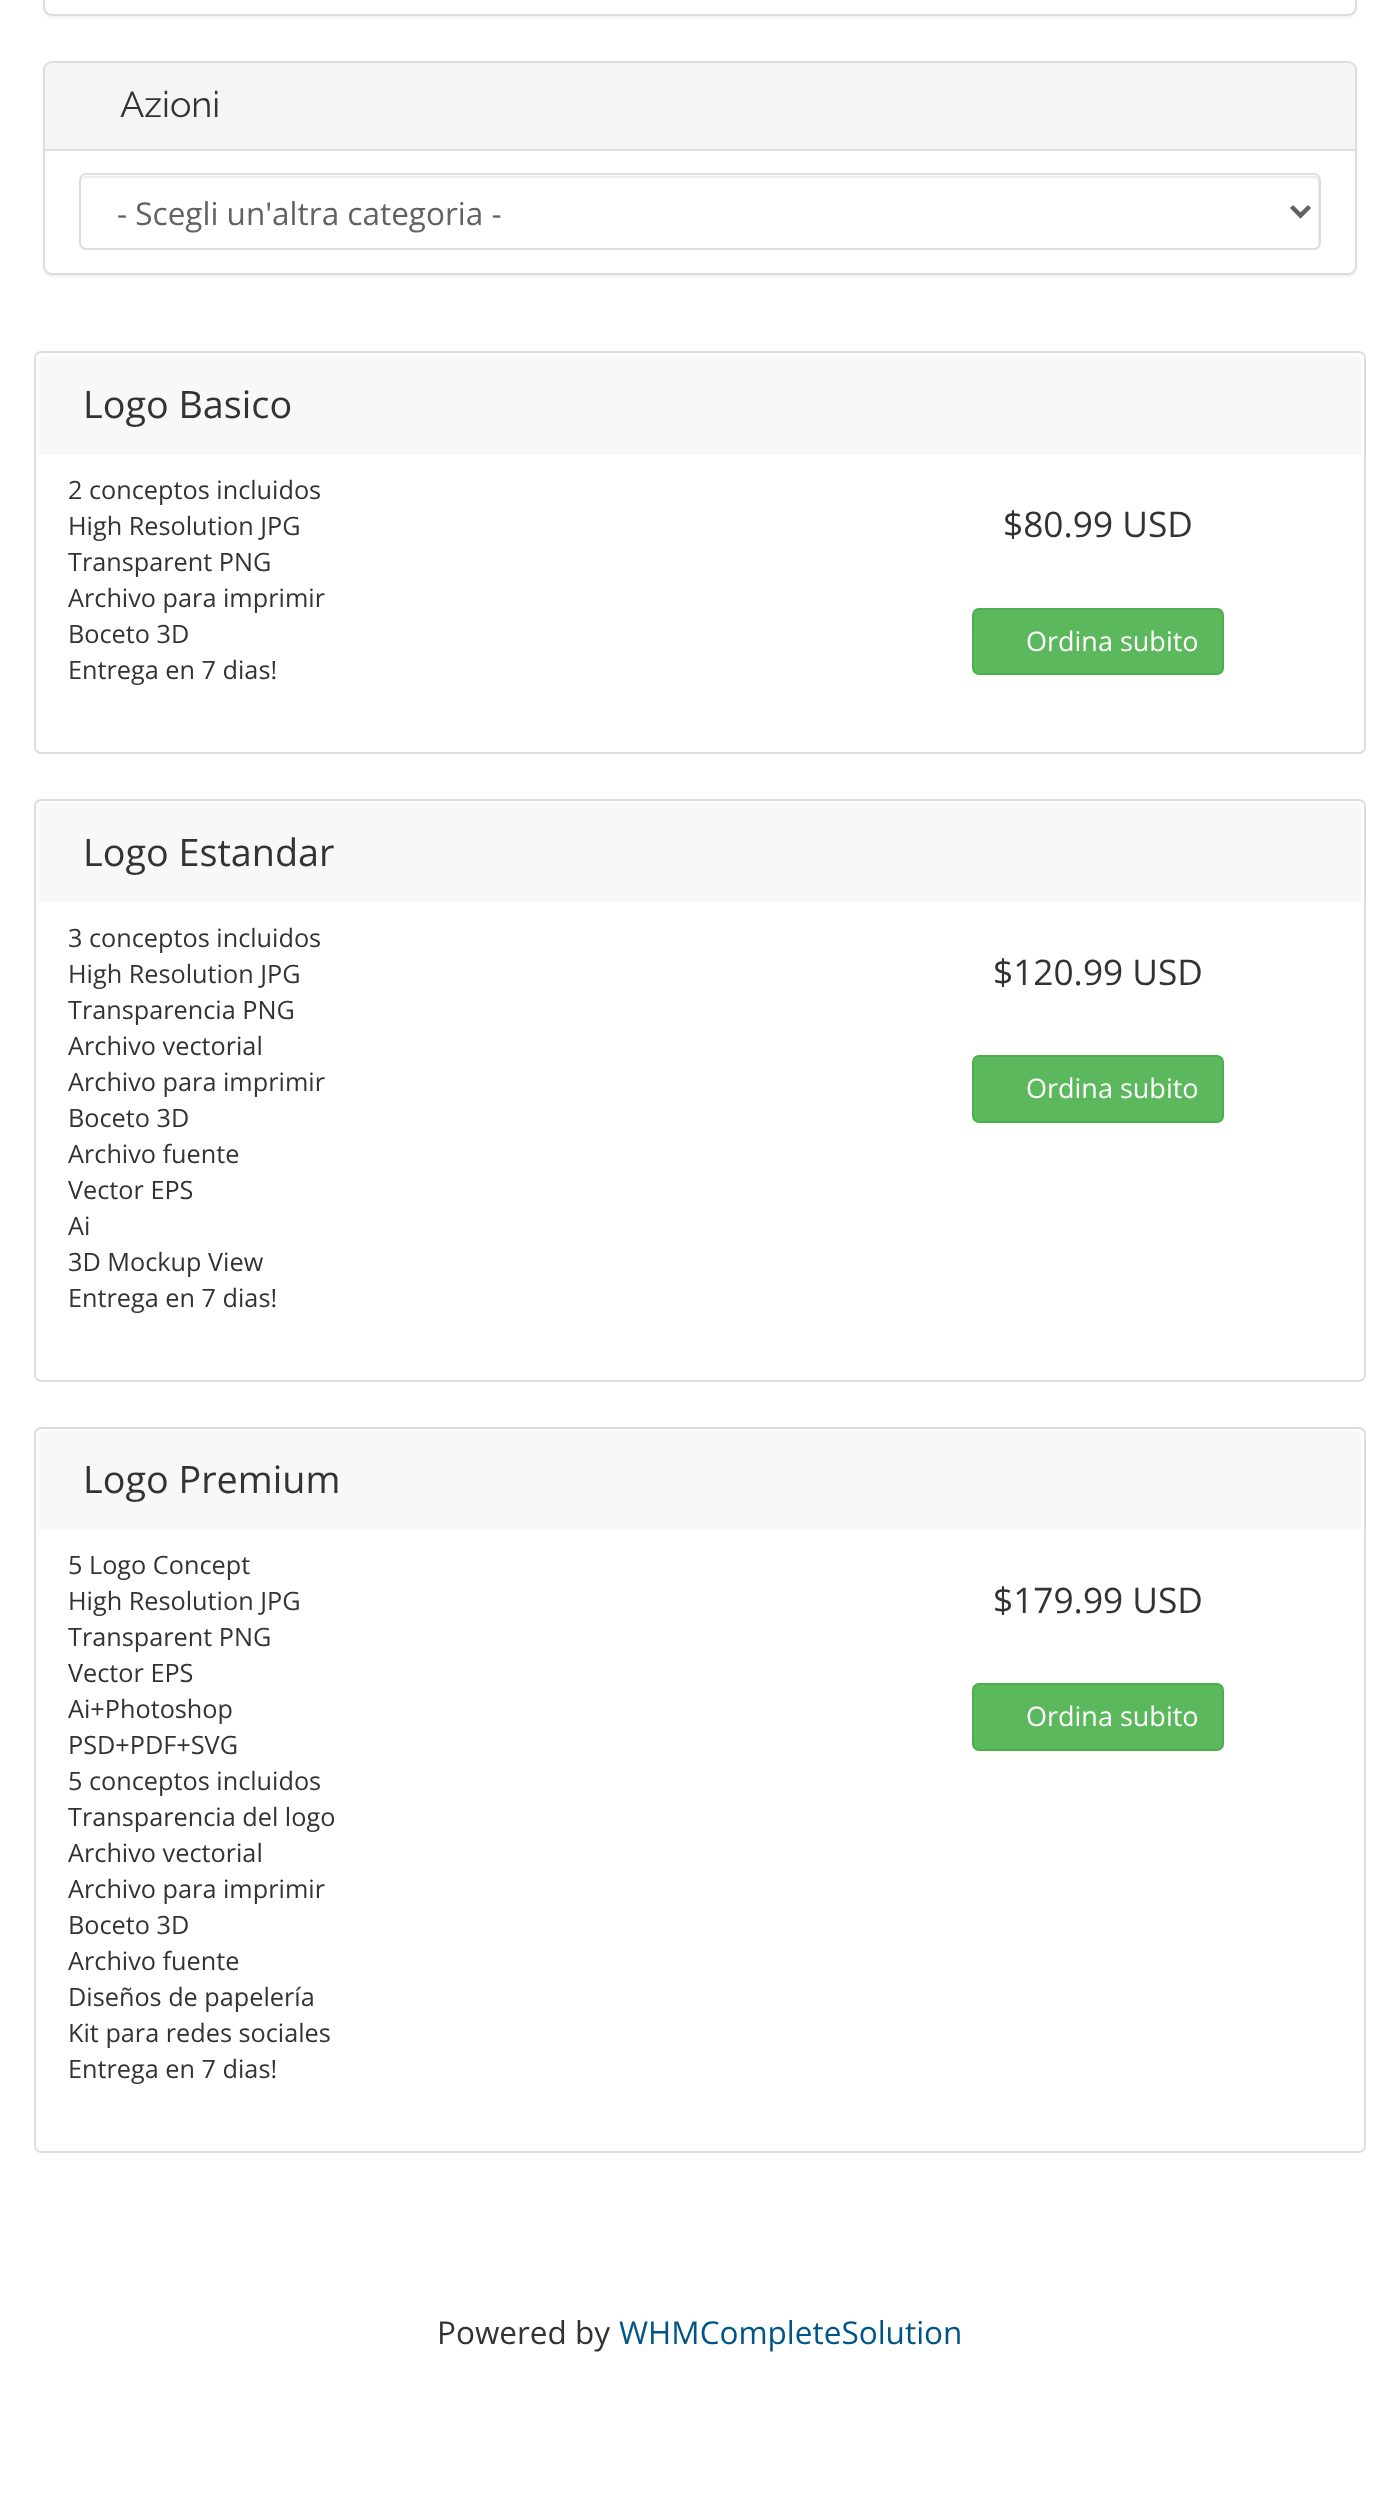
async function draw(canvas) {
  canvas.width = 1398
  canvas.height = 2493
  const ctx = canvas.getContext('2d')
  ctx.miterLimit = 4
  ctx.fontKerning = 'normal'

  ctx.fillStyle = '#fff'
  ctx.fillRect(0, 0, 1398, 2493)
  ctx.fillStyle = '#0000000d'
  ctx.filter = 'blur(1px)'
  ctx.beginPath()
  ctx.roundRect(43, -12, 1314, 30, 9)
  ctx.fill()
  ctx.filter = 'none'
  ctx.fillStyle = '#fff'
  ctx.beginPath()
  ctx.roundRect(44, -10, 1312, 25, 8)
  ctx.fill()
  ctx.strokeStyle = '#ddd'
  ctx.lineWidth = 2
  ctx.stroke()
  ctx.fillStyle = '#0000000d'
  ctx.filter = 'blur(1px)'
  ctx.beginPath()
  ctx.roundRect(43, 63, 1314, 214, 9)
  ctx.fill()
  ctx.filter = 'none'
  ctx.fillStyle = '#fff'
  ctx.beginPath()
  ctx.roundRect(44, 62, 1312, 212, 8)
  ctx.fill()
  ctx.stroke()
  ctx.fillStyle = '#f5f5f5'
  ctx.beginPath()
  ctx.roundRect(45, 63, 1310, 88, [7, 7, 0, 0])
  ctx.fill()
  ctx.fillStyle = '#ddd'
  ctx.fillRect(45, 149, 1310, 2)
  ctx.font = '36px Raleway'
  ctx.fillStyle = '#333'
  ctx.fillText('Azioni', 120, 117)
  ctx.fillStyle = '#ececec'
  ctx.beginPath()
  ctx.moveTo(86, 178)
  ctx.lineTo(1314, 178)
  ctx.bezierCurveTo(1316, 178, 1318, 180, 1318, 182)
  ctx.lineTo(1318, 246)
  ctx.bezierCurveTo(1319, 245, 1319, 244, 1319, 243)
  ctx.lineTo(1319, 181)
  ctx.bezierCurveTo(1319, 178, 1317, 176, 1314, 176)
  ctx.lineTo(86, 176)
  ctx.bezierCurveTo(83, 176, 81, 178, 81, 181)
  ctx.lineTo(81, 182)
  ctx.bezierCurveTo(81, 180, 83, 178, 86, 178)
  ctx.closePath()
  ctx.fill()
  ctx.beginPath()
  ctx.roundRect(80, 174, 1240, 75, 6)
  ctx.stroke()
  ctx.beginPath()
  ctx.moveTo(1291.5, 206.5)
  ctx.lineTo(1300.5, 215.5)
  ctx.lineTo(1309.5, 206.5)
  ctx.strokeStyle = '#626262'
  ctx.lineWidth = 4.5
  ctx.stroke()
  ctx.font = '31.5px Open Sans'
  ctx.fillStyle = '#626262'
  ctx.fillText('- Scegli un\'altra categoria -', 117, 225)
  ctx.beginPath()
  ctx.roundRect(35, 352, 1330, 401, 6)
  ctx.strokeStyle = '#ddd'
  ctx.lineWidth = 2
  ctx.stroke()
  ctx.fillStyle = '#f8f8f8'
  ctx.beginPath()
  ctx.roundRect(38, 356, 1323, 99, [7, 7, 0, 0])
  ctx.fill()
  ctx.font = '37.75px Open Sans'
  ctx.fillStyle = '#333'
  ctx.fillText('Logo Basico', 83, 418)
  ctx.font = '25.25px Open Sans'
  ctx.fillText('2 conceptos incluidos', 68, 499)
  ctx.fillText('High Resolution JPG', 68, 535)
  ctx.fillText('Transparent PNG', 68, 571)
  ctx.fillText('Archivo para imprimir', 68, 607)
  ctx.fillText('Boceto 3D', 68, 643)
  ctx.fillText('Entrega en 7 dias!', 68, 679)
  ctx.font = '35.25px Open Sans'
  ctx.fillText('$80.99 USD', 1003, 537)
  ctx.fillStyle = '#5cb85c'
  ctx.beginPath()
  ctx.roundRect(973, 609, 250, 65, 6)
  ctx.fill()
  ctx.strokeStyle = '#4cae4c'
  ctx.stroke()
  ctx.font = '27px Open Sans'
  ctx.fillStyle = '#fff'
  ctx.fillText('Ordina subito', 1026, 651)
  ctx.beginPath()
  ctx.roundRect(35, 800, 1330, 581, 6)
  ctx.strokeStyle = '#ddd'
  ctx.stroke()
  ctx.fillStyle = '#f8f8f8'
  ctx.beginPath()
  ctx.roundRect(38, 803, 1323, 99, [7, 7, 0, 0])
  ctx.fill()
  ctx.font = '37.75px Open Sans'
  ctx.fillStyle = '#333'
  ctx.fillText('Logo Estandar', 83, 866)
  ctx.font = '25.25px Open Sans'
  ctx.fillText('3 conceptos incluidos', 68, 947)
  ctx.fillText('High Resolution JPG', 68, 983)
  ctx.fillText('Transparencia PNG', 68, 1019)
  ctx.fillText('Archivo vectorial', 68, 1055)
  ctx.fillText('Archivo para imprimir', 68, 1091)
  ctx.fillText('Boceto 3D', 68, 1127)
  ctx.fillText('Archivo fuente', 68, 1163)
  ctx.fillText('Vector EPS', 68, 1199)
  ctx.fillText('Ai', 68, 1235)
  ctx.fillText('3D Mockup View', 68, 1271)
  ctx.fillText('Entrega en 7 dias!', 68, 1307)
  ctx.font = '35.25px Open Sans'
  ctx.fillText('$120.99 USD', 993, 985)
  ctx.fillStyle = '#5cb85c'
  ctx.beginPath()
  ctx.roundRect(973, 1056, 250, 66, 6)
  ctx.fill()
  ctx.strokeStyle = '#4cae4c'
  ctx.stroke()
  ctx.font = '27px Open Sans'
  ctx.fillStyle = '#fff'
  ctx.fillText('Ordina subito', 1026, 1098)
  ctx.beginPath()
  ctx.roundRect(35, 1428, 1330, 724, 6)
  ctx.strokeStyle = '#ddd'
  ctx.stroke()
  ctx.fillStyle = '#f8f8f8'
  ctx.beginPath()
  ctx.roundRect(38, 1431, 1323, 99, [7, 7, 0, 0])
  ctx.fill()
  ctx.font = '37.75px Open Sans'
  ctx.fillStyle = '#333'
  ctx.fillText('Logo Premium', 83, 1493)
  ctx.font = '25.25px Open Sans'
  ctx.fillText('5 Logo Concept', 68, 1574)
  ctx.fillText('High Resolution JPG', 68, 1610)
  ctx.fillText('Transparent PNG', 68, 1646)
  ctx.fillText('Vector EPS', 68, 1682)
  ctx.fillText('Ai+Photoshop', 68, 1718)
  ctx.fillText('PSD+PDF+SVG', 68, 1754)
  ctx.fillText('5 conceptos incluidos', 68, 1790)
  ctx.fillText('Transparencia del logo', 68, 1826)
  ctx.fillText('Archivo vectorial', 68, 1862)
  ctx.fillText('Archivo para imprimir', 68, 1898)
  ctx.fillText('Boceto 3D', 68, 1934)
  ctx.fillText('Archivo fuente', 68, 1970)
  ctx.fillText('Diseños de papelería', 68, 2006)
  ctx.fillText('Kit para redes sociales', 68, 2042)
  ctx.fillText('Entrega en 7 dias!', 68, 2078)
  ctx.font = '35.25px Open Sans'
  ctx.fillText('$179.99 USD', 993, 1613)
  ctx.fillStyle = '#5cb85c'
  ctx.beginPath()
  ctx.roundRect(973, 1684, 250, 66, 6)
  ctx.fill()
  ctx.strokeStyle = '#4cae4c'
  ctx.stroke()
  ctx.font = '27px Open Sans'
  ctx.fillStyle = '#fff'
  ctx.fillText('Ordina subito', 1026, 1726)
  ctx.font = '31.5px Open Sans'
  ctx.fillStyle = '#333'
  ctx.fillText('Powered by', 437, 2344)
  ctx.fillStyle = '#058'
  ctx.fillText('WHMCompleteSolution', 619, 2344)
}

draw(document.querySelector('canvas'))
